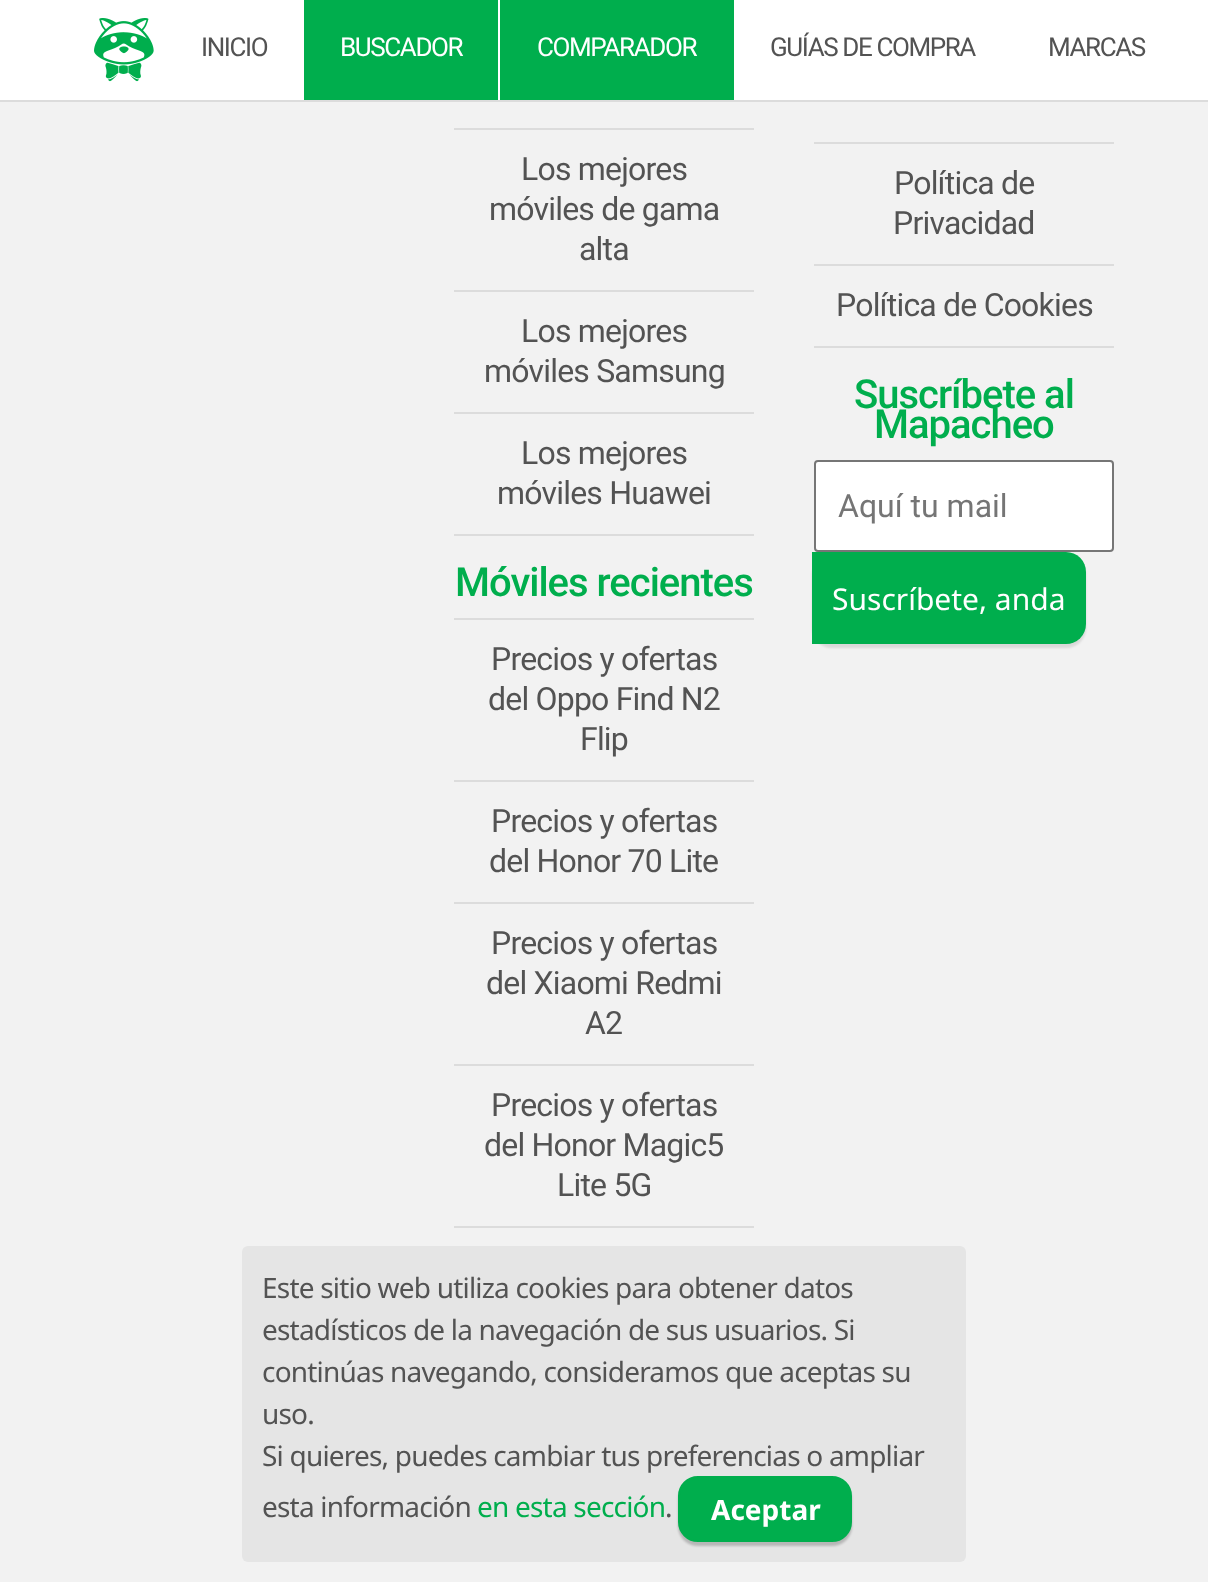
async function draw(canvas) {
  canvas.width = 1208
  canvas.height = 1582
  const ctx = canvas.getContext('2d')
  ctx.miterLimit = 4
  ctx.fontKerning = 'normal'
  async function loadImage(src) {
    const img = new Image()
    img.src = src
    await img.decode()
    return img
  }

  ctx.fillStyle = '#f2f2f2'
  ctx.fillRect(0, 0, 1208, 1582)
  ctx.fillStyle = '#fff'
  ctx.fillRect(0, 0, 1208, 100)
  ctx.fillStyle = '#dcdcdc'
  ctx.fillRect(0, 100, 1208, 2)
  ctx.drawImage(await loadImage('image0.png'), 94, 18, 60, 64)
  ctx.letterSpacing = '-1.4px'
  ctx.font = '26px Roboto'
  ctx.fillStyle = '#535353'
  ctx.fillText('INICIO', 201, 56)
  ctx.fillStyle = '#00ae4d'
  ctx.fillRect(304, 0, 194, 100)
  ctx.fillStyle = '#fff'
  ctx.fillText('BUSCADOR', 340, 56)
  ctx.fillStyle = '#00ae4d'
  ctx.fillRect(500, 0, 234, 100)
  ctx.fillStyle = '#fff'
  ctx.fillText('COMPARADOR', 537, 56)
  ctx.fillStyle = '#535353'
  ctx.fillText('GUÍAS DE COMPRA', 770, 56)
  ctx.fillText('MARCAS', 1048, 56)
  ctx.fillStyle = '#dcdcdc'
  ctx.fillRect(454, 128, 300, 2)
  ctx.letterSpacing = '-0.8px'
  ctx.font = '32px Roboto'
  ctx.fillStyle = '#535353'
  ctx.fillText('Los mejores', 521, 180)
  ctx.fillText('móviles de gama', 489, 220)
  ctx.fillText('alta', 579, 260)
  ctx.fillStyle = '#dcdcdc'
  ctx.fillRect(454, 290, 300, 2)
  ctx.fillStyle = '#535353'
  ctx.fillText('Los mejores', 521, 342)
  ctx.fillText('móviles Samsung', 484, 382)
  ctx.fillStyle = '#dcdcdc'
  ctx.fillRect(454, 412, 300, 2)
  ctx.fillRect(454, 534, 300, 2)
  ctx.fillStyle = '#535353'
  ctx.fillText('Los mejores', 521, 464)
  ctx.fillText('móviles Huawei', 497, 504)
  ctx.letterSpacing = '-1px'
  ctx.font = '500 40px Roboto'
  ctx.fillStyle = '#00ae4d'
  ctx.fillText('Móviles recientes', 455, 596)
  ctx.fillStyle = '#dcdcdc'
  ctx.fillRect(454, 618, 300, 2)
  ctx.letterSpacing = '-0.8px'
  ctx.font = '32px Roboto'
  ctx.fillStyle = '#535353'
  ctx.fillText('Precios y ofertas', 491, 670)
  ctx.fillText('del Oppo Find N2', 488, 710)
  ctx.fillText('Flip', 580, 750)
  ctx.fillStyle = '#dcdcdc'
  ctx.fillRect(454, 780, 300, 2)
  ctx.fillStyle = '#535353'
  ctx.fillText('Precios y ofertas', 491, 832)
  ctx.fillText('del Honor 70 Lite', 489, 872)
  ctx.fillStyle = '#dcdcdc'
  ctx.fillRect(454, 902, 300, 2)
  ctx.fillStyle = '#535353'
  ctx.fillText('Precios y ofertas', 491, 954)
  ctx.fillText('del Xiaomi Redmi', 486, 994)
  ctx.fillText('A2', 585, 1034)
  ctx.fillStyle = '#dcdcdc'
  ctx.fillRect(454, 1064, 300, 2)
  ctx.fillStyle = '#535353'
  ctx.fillText('Precios y ofertas', 491, 1116)
  ctx.fillText('del Honor Magic5', 484, 1156)
  ctx.fillText('Lite 5G', 557, 1196)
  ctx.fillStyle = '#dcdcdc'
  ctx.fillRect(454, 1226, 300, 2)
  ctx.fillRect(814, 142, 300, 2)
  ctx.fillStyle = '#535353'
  ctx.fillText('Política de', 894, 194)
  ctx.fillText('Privacidad', 893, 234)
  ctx.fillStyle = '#dcdcdc'
  ctx.fillRect(814, 264, 300, 2)
  ctx.fillRect(814, 346, 300, 2)
  ctx.fillStyle = '#535353'
  ctx.fillText('Política de Cookies', 836, 316)
  ctx.letterSpacing = '-1px'
  ctx.font = '500 40px Roboto'
  ctx.fillStyle = '#00ae4d'
  ctx.fillText('Suscríbete al', 854, 408)
  ctx.fillText('Mapacheo', 874, 438)
  ctx.fillStyle = '#fff'
  ctx.beginPath()
  ctx.roundRect(815, 461, 298, 90, 3)
  ctx.fill()
  ctx.strokeStyle = '#767676'
  ctx.lineWidth = 2
  ctx.stroke()
  ctx.letterSpacing = '0px'
  ctx.font = '32px Roboto'
  ctx.fillStyle = '#757575'
  ctx.fillText('Aquí tu mail', 838, 517)
  ctx.fillStyle = '#0000001a'
  ctx.filter = 'blur(1px)'
  ctx.beginPath()
  ctx.roundRect(812, 556, 274, 92, 20)
  ctx.fill()
  ctx.filter = 'none'
  ctx.fillStyle = '#00ae4d'
  ctx.beginPath()
  ctx.roundRect(812, 552, 274, 92, [0, 20, 20, 0])
  ctx.fill()
  ctx.font = '30px Noto Sans'
  ctx.fillStyle = '#fff'
  ctx.fillText('Suscríbete, anda', 832, 610)
  ctx.fillStyle = '#e5e5e5'
  ctx.beginPath()
  ctx.roundRect(242, 1246, 724, 316, 6)
  ctx.fill()
  ctx.letterSpacing = '-0.8px'
  ctx.font = '28px Noto Sans'
  ctx.fillStyle = '#535353'
  ctx.fillText('Este sitio web utiliza cookies para obtener datos', 262, 1298)
  ctx.fillText('estadísticos de la navegación de sus usuarios. Si', 262, 1340)
  ctx.fillText('continúas navegando, consideramos que aceptas su', 262, 1382)
  ctx.fillText('uso.', 262, 1424)
  ctx.fillText('Si quieres, puedes cambiar tus preferencias o ampliar', 262, 1466)
  ctx.fillText('esta información', 262, 1517)
  ctx.fillStyle = '#00ae4d'
  ctx.fillText('en esta sección', 477, 1517)
  ctx.fillStyle = '#535353'
  ctx.fillText('.', 665, 1517)
  ctx.fillStyle = '#00000033'
  ctx.filter = 'blur(1px)'
  ctx.beginPath()
  ctx.roundRect(678, 1480, 174, 66, 20)
  ctx.fill()
  ctx.filter = 'none'
  ctx.fillStyle = '#00ae4d'
  ctx.beginPath()
  ctx.roundRect(679, 1477, 172, 64, 19)
  ctx.fill()
  ctx.strokeStyle = '#00ae4d'
  ctx.stroke()
  ctx.letterSpacing = '0px'
  ctx.font = 'bold 28px Noto Sans'
  ctx.fillStyle = '#fff'
  ctx.fillText('Aceptar', 711, 1520)
}

draw(document.querySelector('canvas'))
